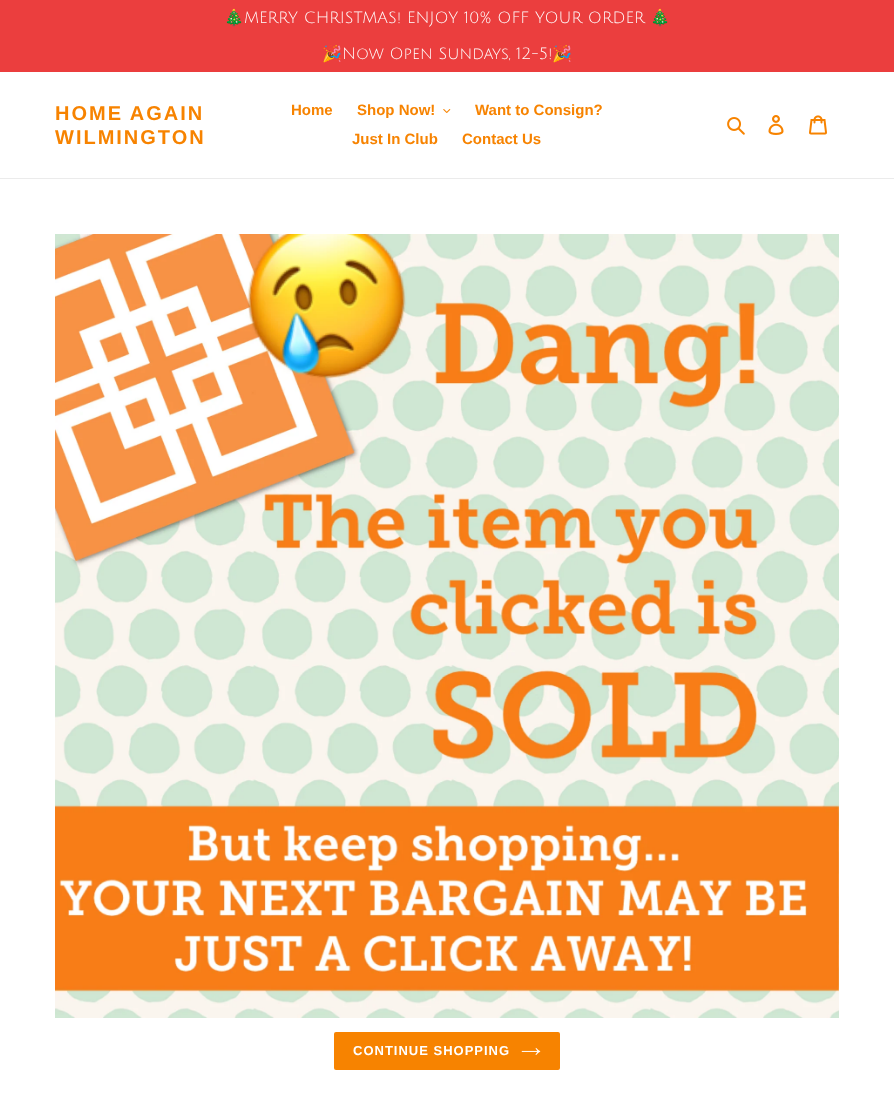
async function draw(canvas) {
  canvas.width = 894
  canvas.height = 1112
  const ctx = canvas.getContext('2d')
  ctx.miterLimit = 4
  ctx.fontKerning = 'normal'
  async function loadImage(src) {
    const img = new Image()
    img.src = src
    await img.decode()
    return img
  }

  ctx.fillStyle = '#fff'
  ctx.fillRect(0, 0, 894, 1112)
  ctx.fillStyle = '#eb3e3e'
  ctx.fillRect(0, 0, 894, 72)
  ctx.font = '16px Noto Color Emoji'
  ctx.fillStyle = '#fff'
  ctx.fillText('🎄', 224, 23)
  ctx.font = '16px Julius Sans One'
  ctx.fillText('MERRY CHRISTMAS! ENJOY 10% OFF YOUR ORDER', 244, 23)
  ctx.font = '16px Noto Color Emoji'
  ctx.fillText('🎄', 650, 23)
  ctx.fillText('🎉', 322, 59)
  ctx.font = '16px Julius Sans One'
  ctx.fillText('Now Open Sundays, 12-5!', 342, 59)
  ctx.font = '16px Noto Color Emoji'
  ctx.fillText('🎉', 552, 59)
  ctx.fillStyle = '#ebebeb'
  ctx.fillRect(0, 178, 894, 1)
  ctx.letterSpacing = '2px'
  ctx.font = 'bold 20px Liberation Sans'
  ctx.fillStyle = '#f78300'
  ctx.fillText('HOME AGAIN', 55, 120)
  ctx.fillText('WILMINGTON', 55, 144)
  ctx.letterSpacing = '0px'
  ctx.font = 'bold 15px Liberation Sans'
  ctx.fillText('Home', 291, 115)
  ctx.fillText('Shop Now!', 357, 115)
  ctx.drawImage(await loadImage('image0.png'), 443, 109, 8, 4)
  ctx.fillText('Want to Consign?', 475, 115)
  ctx.fillText('Just In Club', 352, 144)
  ctx.fillText('Contact Us', 462, 144)
  ctx.drawImage(await loadImage('image1.png'), 727, 117, 18, 18)
  ctx.drawImage(await loadImage('image2.png'), 768, 115, 16, 20)
  ctx.drawImage(await loadImage('image3.png'), 809, 115, 18, 20)
  ctx.drawImage(await loadImage('image4.png'), 55, 234, 784, 784)
  ctx.beginPath()
  ctx.roundRect(334, 1032, 226, 38, 2)
  ctx.fill()
  ctx.letterSpacing = '1px'
  ctx.font = 'bold 13px Liberation Sans'
  ctx.fillStyle = '#fff'
  ctx.fillText('CONTINUE SHOPPING', 353, 1055)
  ctx.drawImage(await loadImage('image5.png'), 521, 1047, 20, 8)
}

draw(document.querySelector('canvas'))
